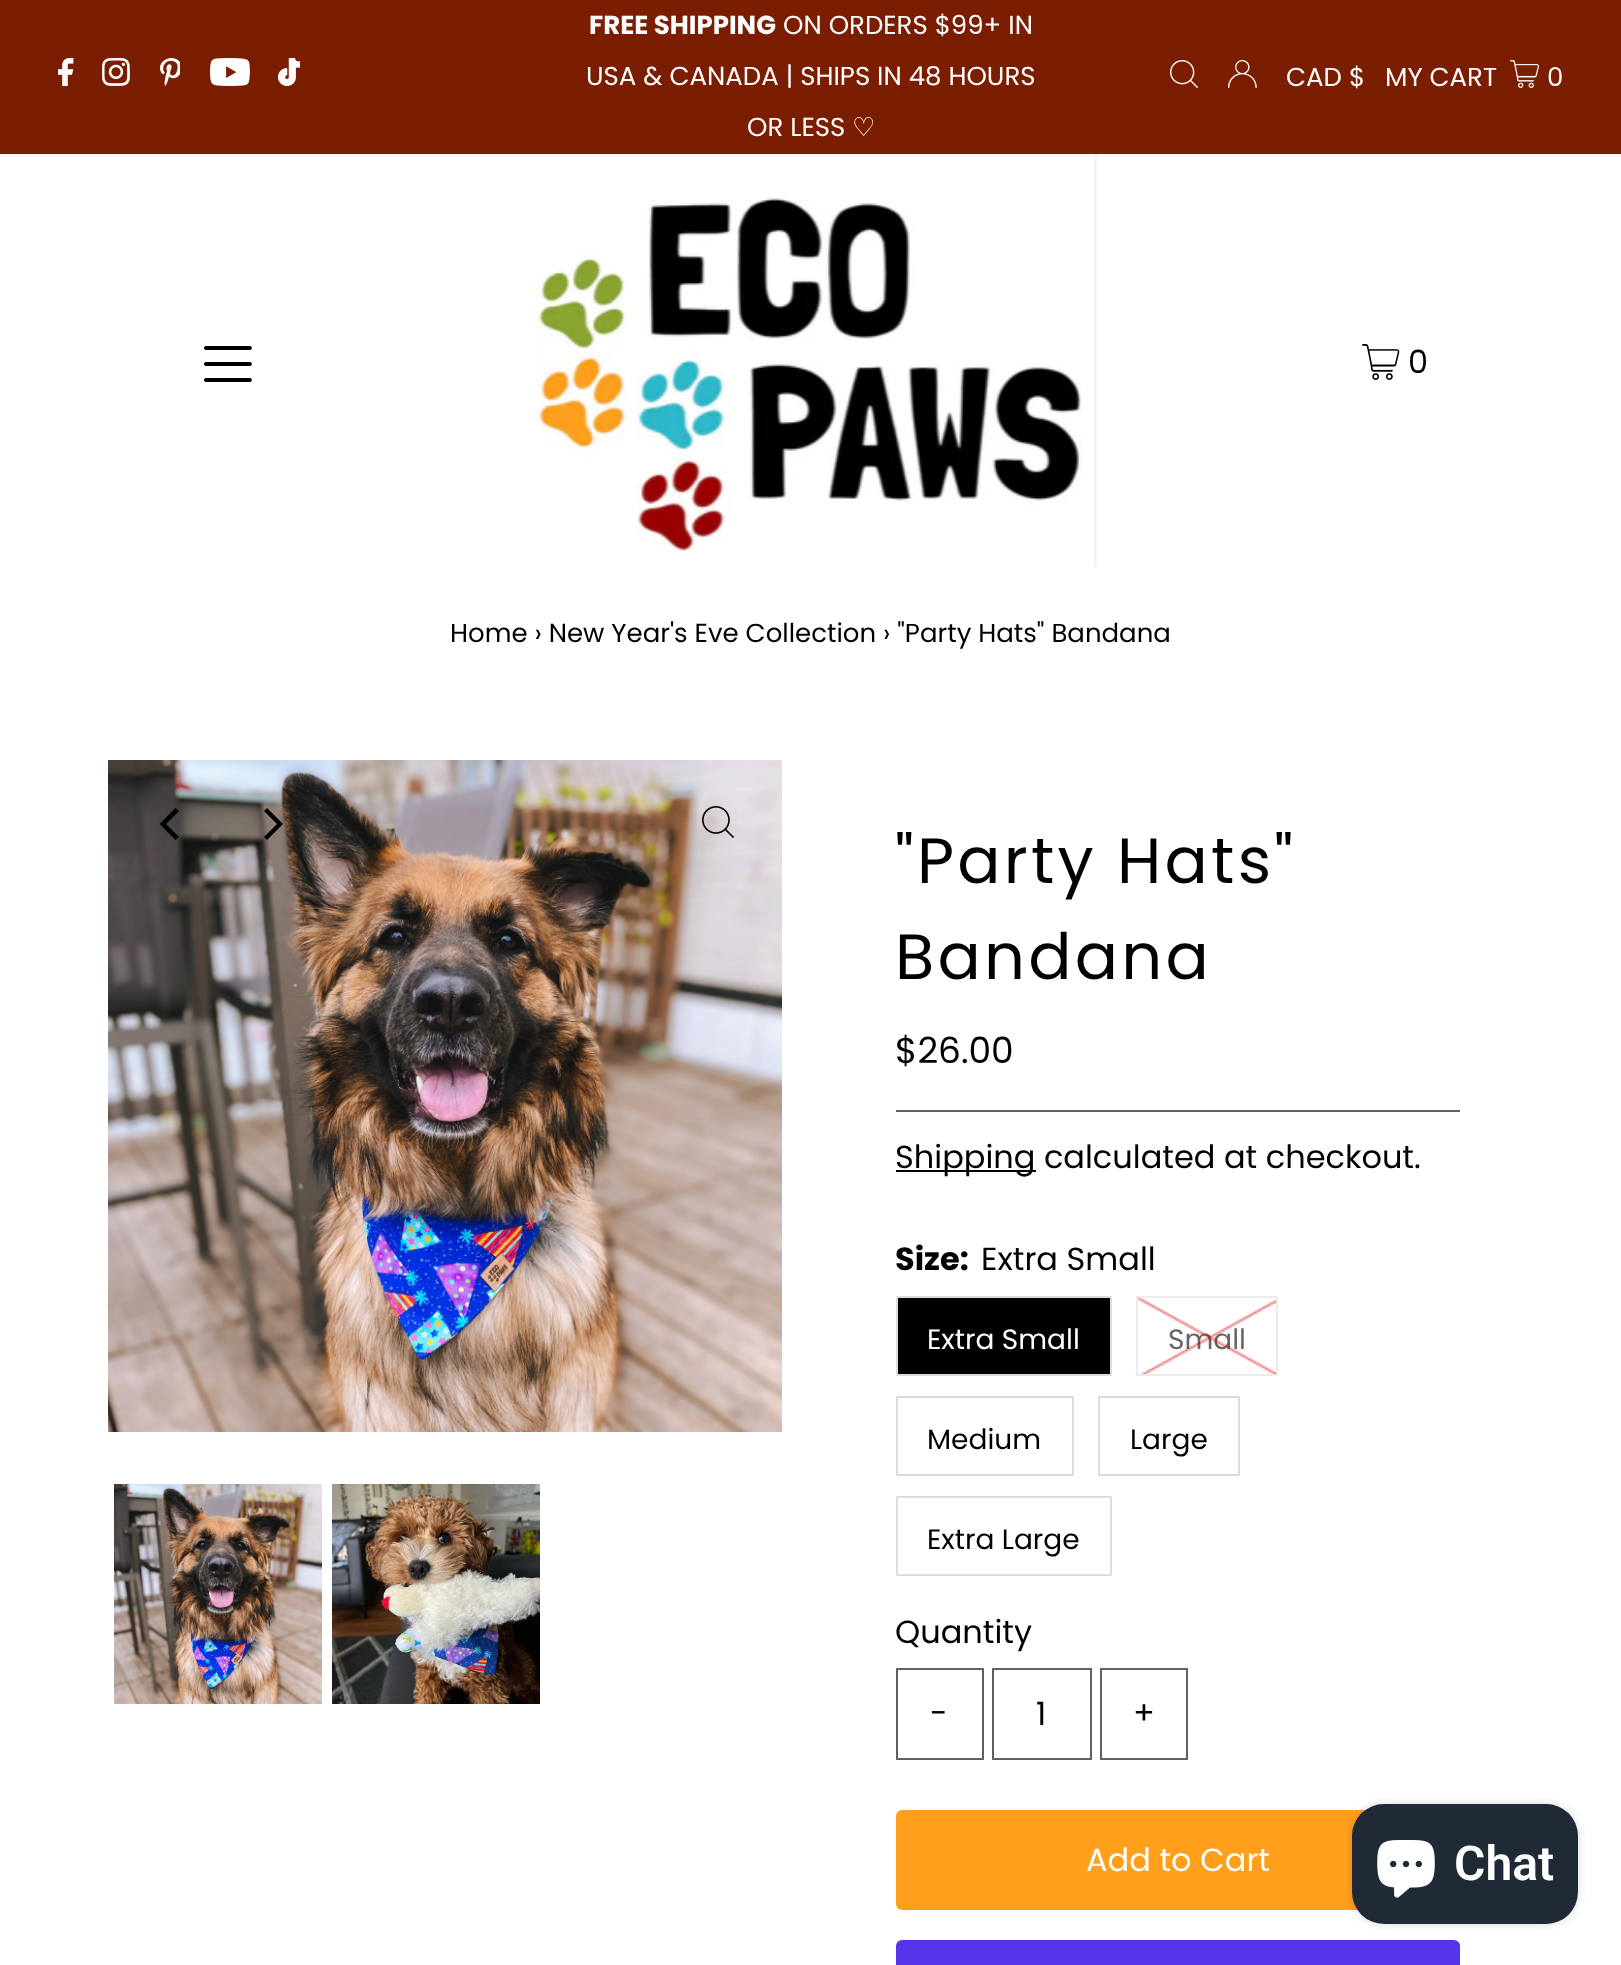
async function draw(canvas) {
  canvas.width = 1621
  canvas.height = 1965
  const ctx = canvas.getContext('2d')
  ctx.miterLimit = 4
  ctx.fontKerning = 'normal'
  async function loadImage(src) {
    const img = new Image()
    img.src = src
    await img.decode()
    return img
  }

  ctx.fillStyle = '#fff'
  ctx.fillRect(0, 0, 1621, 1965)
  ctx.fillStyle = '#7b1d00'
  ctx.fillRect(0, 0, 1621, 154)
  ctx.drawImage(await loadImage('image0.png'), 58, 58, 16, 28)
  ctx.drawImage(await loadImage('image1.png'), 102, 58, 28, 28)
  ctx.drawImage(await loadImage('image2.png'), 160, 58, 20, 28)
  ctx.drawImage(await loadImage('image3.png'), 210, 58, 40, 28)
  ctx.drawImage(await loadImage('image4.png'), 278, 58, 22, 28)
  ctx.font = 'bold 26px Poppins'
  ctx.fillStyle = '#fff'
  ctx.fillText('FREE SHIPPING', 589, 34)
  ctx.font = '26px Poppins'
  ctx.fillText('ON ORDERS $99+ IN', 783, 34)
  ctx.fillText('USA & CANADA | SHIPS IN 48 HOURS', 586, 85)
  ctx.fillText('OR LESS', 747, 136)
  ctx.font = '26px DejaVu Sans'
  ctx.fillText('♡', 852, 136)
  ctx.drawImage(await loadImage('image5.png'), 1170, 60, 28, 28)
  ctx.drawImage(await loadImage('image6.png'), 1228, 60, 29, 28)
  ctx.font = '26px Poppins'
  ctx.fillText('CAD $', 1286, 86)
  ctx.fillText('MY CART', 1385, 86)
  ctx.drawImage(await loadImage('image7.png'), 1510, 60, 29, 28)
  ctx.fillText('0', 1547, 86)
  ctx.drawImage(await loadImage('image8.png'), 204, 346, 48, 36)
  ctx.drawImage(await loadImage('image9.png'), 534, 154, 563, 414)
  ctx.drawImage(await loadImage('image10.png'), 1362, 344, 38, 36)
  ctx.font = '32px Poppins'
  ctx.fillStyle = '#000'
  ctx.fillText('0', 1408, 373)
  ctx.font = '26px Poppins'
  ctx.fillText('Home › New Year\'s Eve Collection › "Party Hats" Bandana', 450, 642)
  ctx.drawImage(await loadImage('image11.png'), 108, 760, 674, 672)
  ctx.drawImage(await loadImage('image12.png'), 702, 806, 32, 32)
  ctx.beginPath()
  ctx.moveTo(159.5, 824)
  ctx.lineTo(175.5, 840)
  ctx.lineTo(179, 837)
  ctx.lineTo(166, 824)
  ctx.lineTo(179, 811)
  ctx.lineTo(175.5, 808)
  ctx.closePath()
  ctx.fill()
  ctx.beginPath()
  ctx.moveTo(283, 824)
  ctx.lineTo(267, 808)
  ctx.lineTo(264, 811)
  ctx.lineTo(277, 824)
  ctx.lineTo(264, 837)
  ctx.lineTo(267, 840)
  ctx.closePath()
  ctx.fill()
  ctx.drawImage(await loadImage('image13.png'), 114, 1484, 208, 220)
  ctx.drawImage(await loadImage('image14.png'), 332, 1484, 208, 220)
  ctx.letterSpacing = '3.25px'
  ctx.font = '64px Poppins'
  ctx.fillText('"Party Hats"', 895, 883)
  ctx.fillText('Bandana', 895, 979)
  ctx.fillStyle = '#616161'
  ctx.fillRect(896, 1110, 564, 2)
  ctx.letterSpacing = '0px'
  ctx.font = '36px Poppins'
  ctx.fillStyle = '#000'
  ctx.fillText('$26.00', 895, 1063)
  ctx.fillRect(896, 1170, 140, 2)
  ctx.font = '32px Poppins'
  ctx.fillText('Shipping calculated at checkout.', 895, 1168)
  ctx.font = 'bold 32px Poppins'
  ctx.fillText('Size:', 895, 1270)
  ctx.font = '32px Poppins'
  ctx.fillText('Extra Small', 981, 1270)
  ctx.beginPath()
  ctx.rect(897, 1297, 214, 78)
  ctx.fill()
  ctx.strokeStyle = '#ddd'
  ctx.lineWidth = 2
  ctx.stroke()
  ctx.font = '28px Poppins'
  ctx.fillStyle = '#fff'
  ctx.fillText('Extra Small', 927, 1349)
  ctx.strokeStyle = '#ebebeb'
  ctx.strokeRect(1137, 1297, 140, 78)
  ctx.fillStyle = '#666'
  ctx.fillText('Small', 1168, 1349)
  ctx.drawImage(await loadImage('image15.png'), 1138, 1298, 138, 76)
  ctx.strokeStyle = '#ddd'
  ctx.strokeRect(897, 1397, 176, 78)
  ctx.fillStyle = '#000'
  ctx.fillText('Medium', 927, 1449)
  ctx.strokeRect(1099, 1397, 140, 78)
  ctx.fillText('Large', 1130, 1449)
  ctx.strokeRect(897, 1497, 214, 78)
  ctx.fillText('Extra Large', 927, 1549)
  ctx.font = '32px Poppins'
  ctx.fillText('Quantity', 895, 1643)
  ctx.strokeStyle = '#616161'
  ctx.strokeRect(897, 1669, 86, 90)
  ctx.fillText('-', 930, 1724)
  ctx.strokeRect(993, 1669, 98, 90)
  ctx.fillText('1', 1036, 1725)
  ctx.strokeRect(1101, 1669, 86, 90)
  ctx.fillText('+', 1133, 1724)
  ctx.fillStyle = '#ff9f1c'
  ctx.beginPath()
  ctx.roundRect(896, 1810, 564, 100, 6)
  ctx.fill()
  ctx.fillStyle = '#fff'
  ctx.fillText('Add to Cart', 1086, 1871)
  ctx.fillStyle = '#5433eb'
  ctx.beginPath()
  ctx.roundRect(896, 1940, 564, 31, 6)
  ctx.fill()
  ctx.fillStyle = '#00000026'
  ctx.filter = 'blur(5px)'
  ctx.beginPath()
  ctx.roundRect(1352, 1804, 226, 120, 32)
  ctx.fill()
  ctx.filter = 'none'
  ctx.fillStyle = '#202a36'
  ctx.beginPath()
  ctx.roundRect(1352, 1804, 226, 120, 32)
  ctx.fill()
  ctx.drawImage(await loadImage('image16.png'), 1377, 1840, 58, 58)
  ctx.font = '600 48px Roboto'
  ctx.fillStyle = '#fff'
  ctx.fillText('Chat', 1454, 1880)
}

draw(document.querySelector('canvas'))
